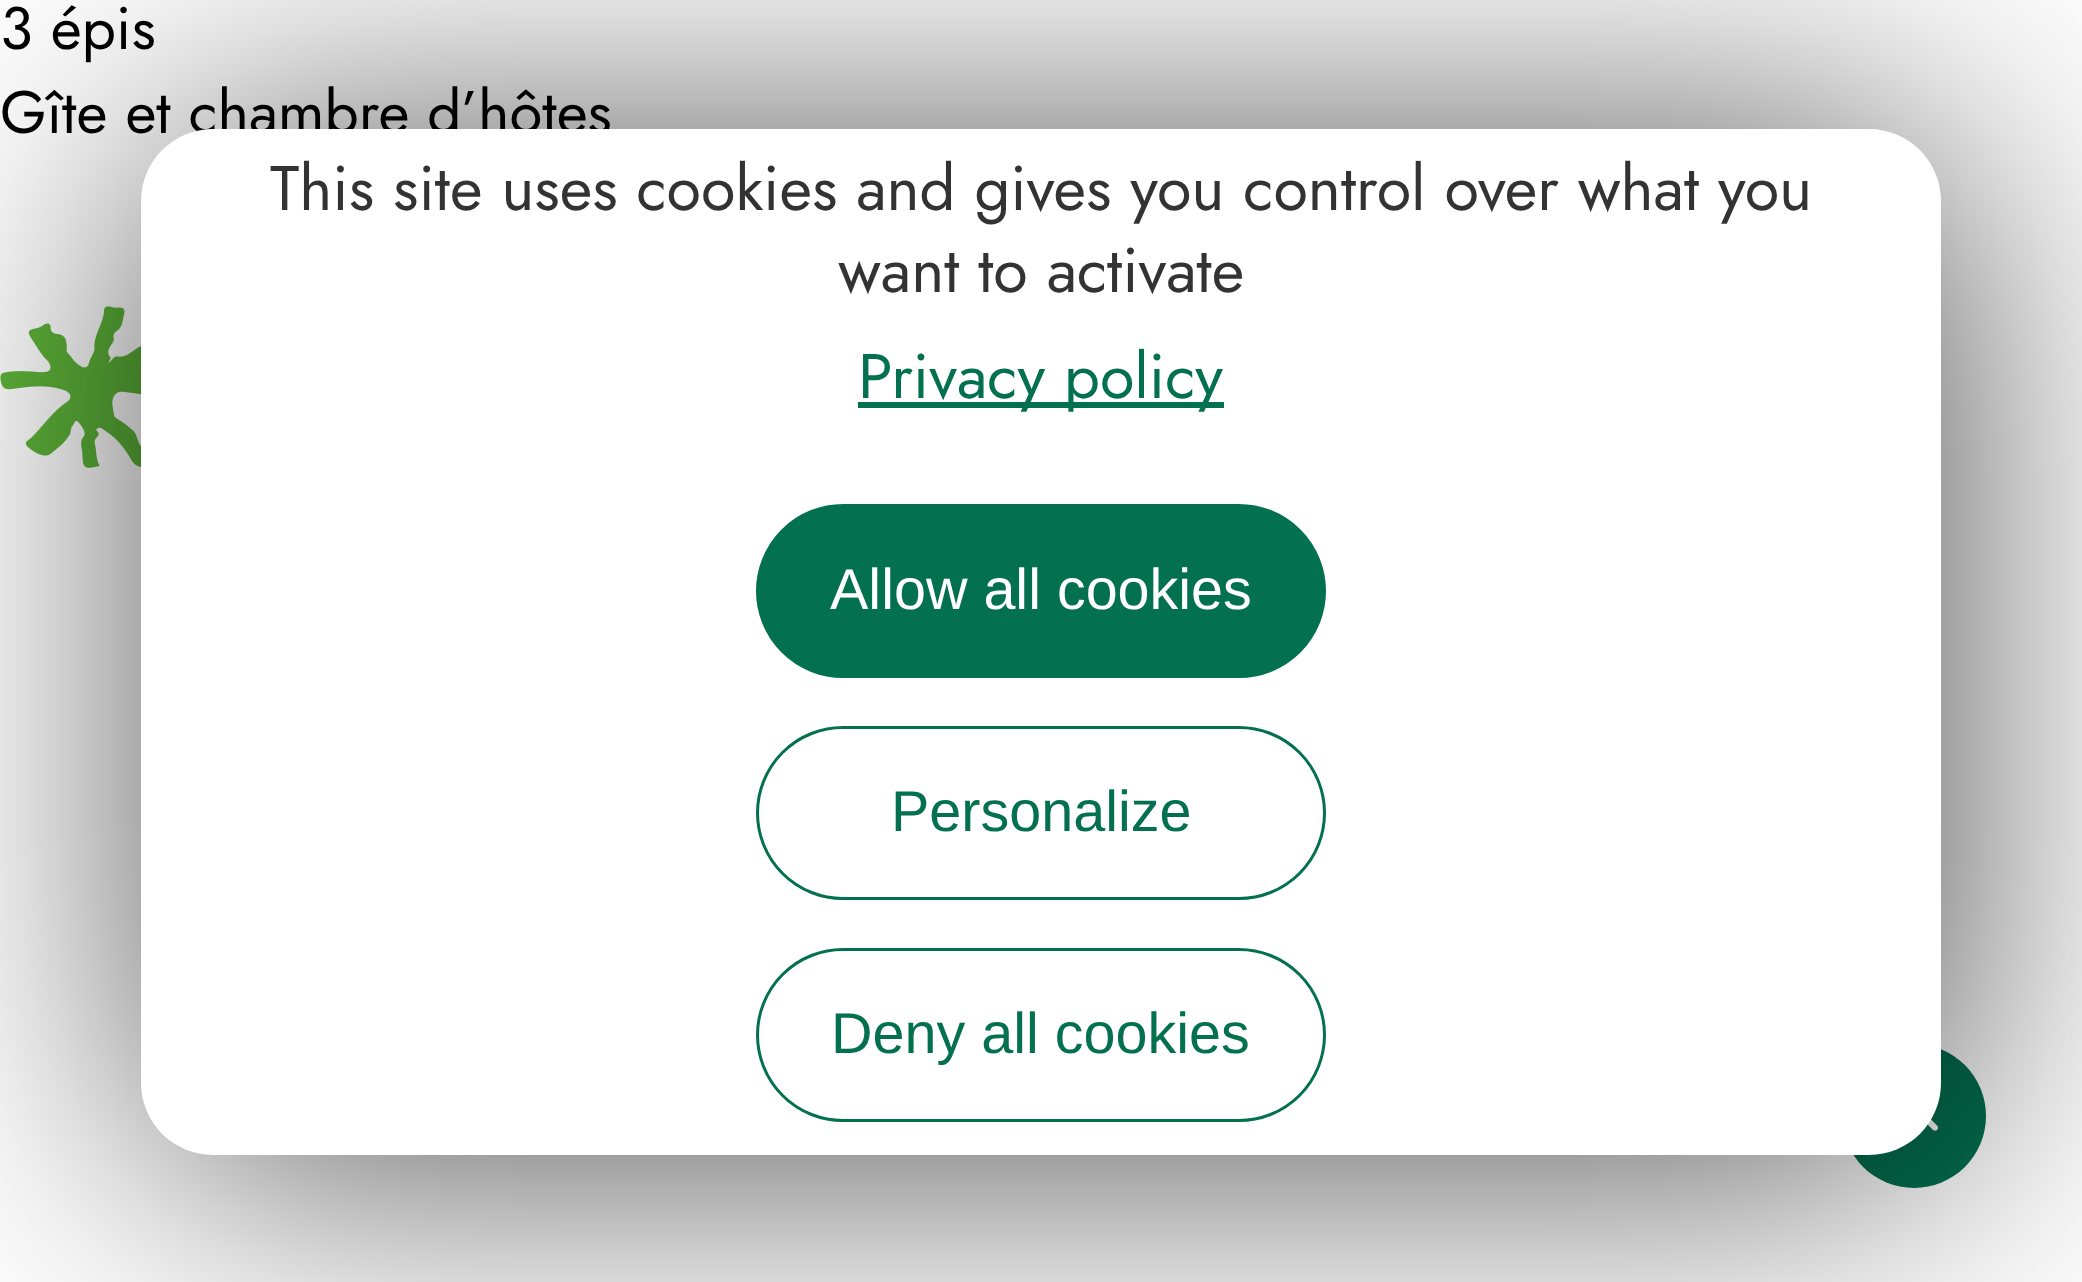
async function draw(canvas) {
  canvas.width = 2082
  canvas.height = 1282
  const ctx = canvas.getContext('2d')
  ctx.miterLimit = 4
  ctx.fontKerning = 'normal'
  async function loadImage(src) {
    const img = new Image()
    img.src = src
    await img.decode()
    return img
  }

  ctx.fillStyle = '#fff'
  ctx.fillRect(0, 0, 2082, 1282)
  ctx.font = '60px Jost'
  ctx.fillStyle = '#000'
  ctx.fillText('3 épis', 0, 49)
  ctx.fillText('Gîte et chambre d’hôtes', 0, 133)
  ctx.drawImage(await loadImage('image0.png'), 0, 306, 141, 162)
  ctx.fillStyle = '#037050'
  ctx.beginPath()
  ctx.arc(1914, 1116, 72, 0, 2 * Math.PI)
  ctx.fill()
  ctx.drawImage(await loadImage('image1.png'), 1927, 1119, 11, 12)
  ctx.fillStyle = '#000000b3'
  ctx.filter = 'blur(150px)'
  ctx.beginPath()
  ctx.roundRect(153, 141, 1800, 1026, 72)
  ctx.fill()
  ctx.filter = 'none'
  ctx.fillStyle = '#fff'
  ctx.beginPath()
  ctx.roundRect(141, 129, 1800, 1026, 72)
  ctx.fill()
  ctx.font = '63px Jost'
  ctx.fillStyle = '#333'
  ctx.fillText('This site uses cookies and gives you control over what you', 270, 210)
  ctx.fillText('want to activate', 838, 292)
  ctx.fillStyle = '#037050'
  ctx.fillRect(858, 402, 366, 6)
  ctx.fillText('Privacy policy', 858, 398)
  ctx.beginPath()
  ctx.roundRect(757.5, 505.5, 567, 171, 85.5)
  ctx.fill()
  ctx.strokeStyle = '#037050'
  ctx.lineWidth = 3
  ctx.stroke()
  ctx.font = '57.5px Liberation Sans'
  ctx.fillStyle = '#fff'
  ctx.fillText('Allow all cookies', 830, 609)
  ctx.beginPath()
  ctx.roundRect(757.5, 727.5, 567, 171, 85.5)
  ctx.stroke()
  ctx.fillStyle = '#037050'
  ctx.fillText('Personalize', 891, 831)
  ctx.beginPath()
  ctx.roundRect(757.5, 949.5, 567, 171, 85.5)
  ctx.stroke()
  ctx.fillText('Deny all cookies', 831, 1053)
}

draw(document.querySelector('canvas'))
